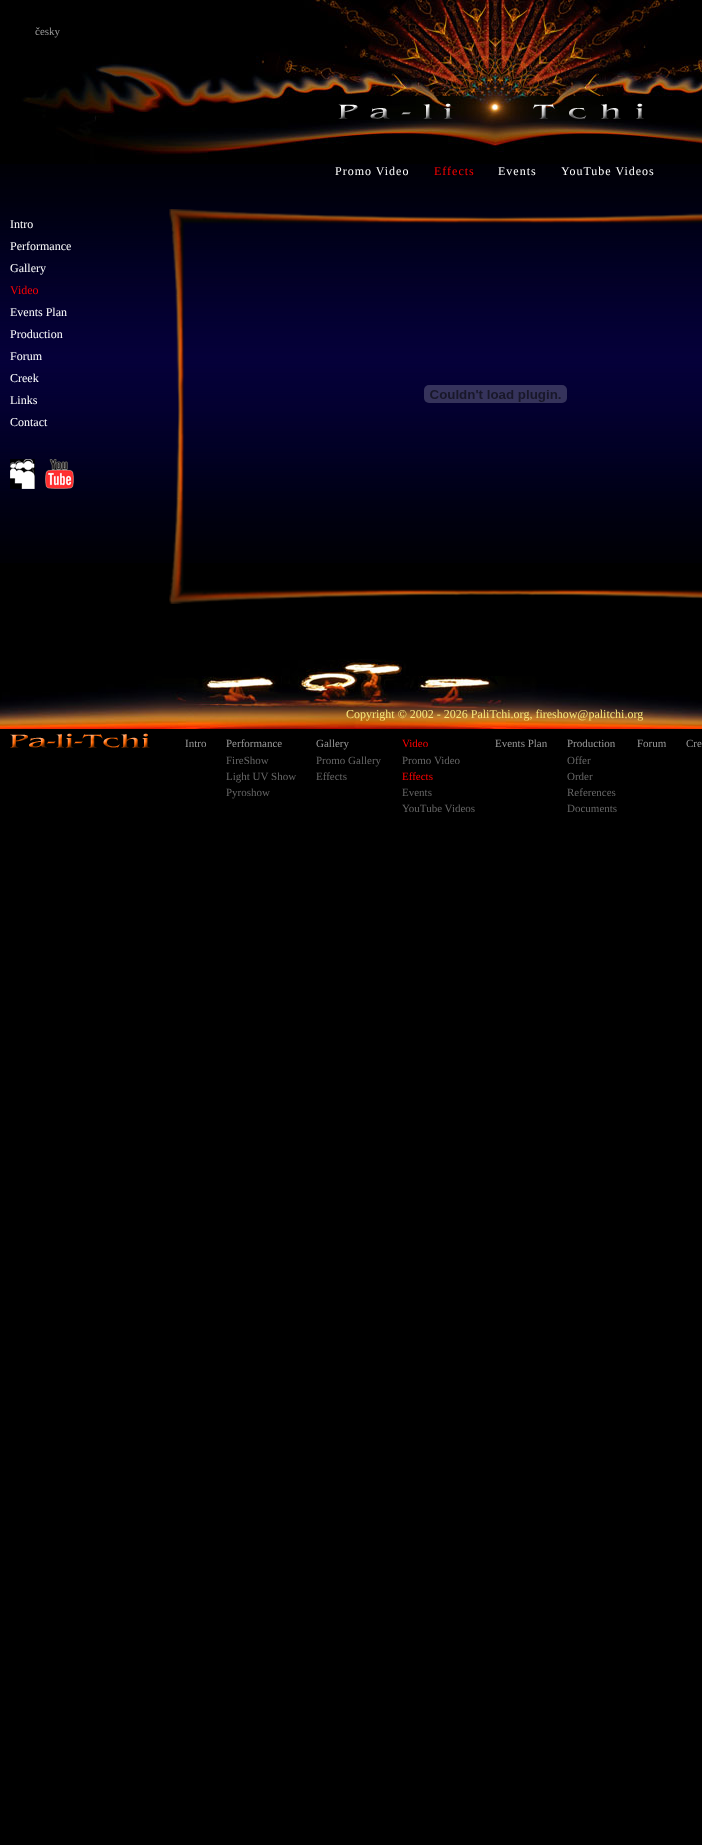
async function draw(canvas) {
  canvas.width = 702
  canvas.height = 1845
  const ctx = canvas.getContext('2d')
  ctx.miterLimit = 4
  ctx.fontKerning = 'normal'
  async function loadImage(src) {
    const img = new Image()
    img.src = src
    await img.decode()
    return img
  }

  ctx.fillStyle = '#000'
  ctx.fillRect(0, 0, 702, 1845)
  ctx.drawImage(await loadImage('image0.png'), 0, 164, 702, 399)
  ctx.drawImage(await loadImage('image1.png'), 0, 0, 702, 164)
  ctx.font = '11px Liberation Serif'
  ctx.fillStyle = '#999'
  ctx.fillText('česky', 35, 35)
  ctx.drawImage(await loadImage('image2.png'), 338, 103, 306, 16)
  ctx.letterSpacing = '1px'
  ctx.font = '12px Liberation Serif'
  ctx.fillStyle = '#fff'
  ctx.fillText('Promo Video', 335, 175)
  ctx.fillStyle = '#f00'
  ctx.fillText('Effects', 434, 175)
  ctx.fillStyle = '#fff'
  ctx.fillText('Events', 498, 175)
  ctx.fillText('YouTube Videos', 561, 175)
  ctx.drawImage(await loadImage('image3.png'), 169, 209, 533, 395)
  ctx.drawImage(await loadImage('image4.png'), 424, 385, 143, 18)
  ctx.letterSpacing = '0px'
  ctx.fillText('Intro', 10, 228)
  ctx.fillText('Performance', 10, 250)
  ctx.fillText('Gallery', 10, 272)
  ctx.fillStyle = '#f00'
  ctx.fillText('Video', 10, 294)
  ctx.fillStyle = '#fff'
  ctx.fillText('Events Plan', 10, 316)
  ctx.fillText('Production', 10, 338)
  ctx.fillText('Forum', 10, 360)
  ctx.fillText('Creek', 10, 382)
  ctx.fillText('Links', 10, 404)
  ctx.fillText('Contact', 10, 426)
  ctx.drawImage(await loadImage('image5.png'), 10, 459, 25, 30)
  ctx.drawImage(await loadImage('image6.png'), 45, 459, 29, 30)
  ctx.drawImage(await loadImage('image7.png'), 0, 659, 702, 70)
  ctx.fillStyle = '#f7e77b'
  ctx.fillText('Copyright © 2002 - 2026 PaliTchi.org, fireshow@palitchi.org', 346, 718)
  ctx.drawImage(await loadImage('image8.png'), 10, 733, 140, 15)
  ctx.font = '11px Liberation Serif'
  ctx.fillStyle = '#999'
  ctx.fillText('Intro', 185, 747)
  ctx.fillText('Performance', 226, 747)
  ctx.fillStyle = '#666'
  ctx.fillText('FireShow', 226, 764)
  ctx.fillText('Light UV Show', 226, 780)
  ctx.fillText('Pyroshow', 226, 796)
  ctx.fillStyle = '#999'
  ctx.fillText('Gallery', 316, 747)
  ctx.fillStyle = '#666'
  ctx.fillText('Promo Gallery', 316, 764)
  ctx.fillText('Effects', 316, 780)
  ctx.fillStyle = '#f00'
  ctx.fillText('Video', 402, 747)
  ctx.fillStyle = '#666'
  ctx.fillText('Promo Video', 402, 764)
  ctx.fillStyle = '#f00'
  ctx.fillText('Effects', 402, 780)
  ctx.fillStyle = '#666'
  ctx.fillText('Events', 402, 796)
  ctx.fillText('YouTube Videos', 402, 812)
  ctx.fillStyle = '#999'
  ctx.fillText('Events Plan', 495, 747)
  ctx.fillText('Production', 567, 747)
  ctx.fillStyle = '#666'
  ctx.fillText('Offer', 567, 764)
  ctx.fillText('Order', 567, 780)
  ctx.fillText('References', 567, 796)
  ctx.fillText('Documents', 567, 812)
  ctx.fillStyle = '#999'
  ctx.fillText('Forum', 637, 747)
  ctx.fillText('Cre', 686, 747)
}

draw(document.querySelector('canvas'))
